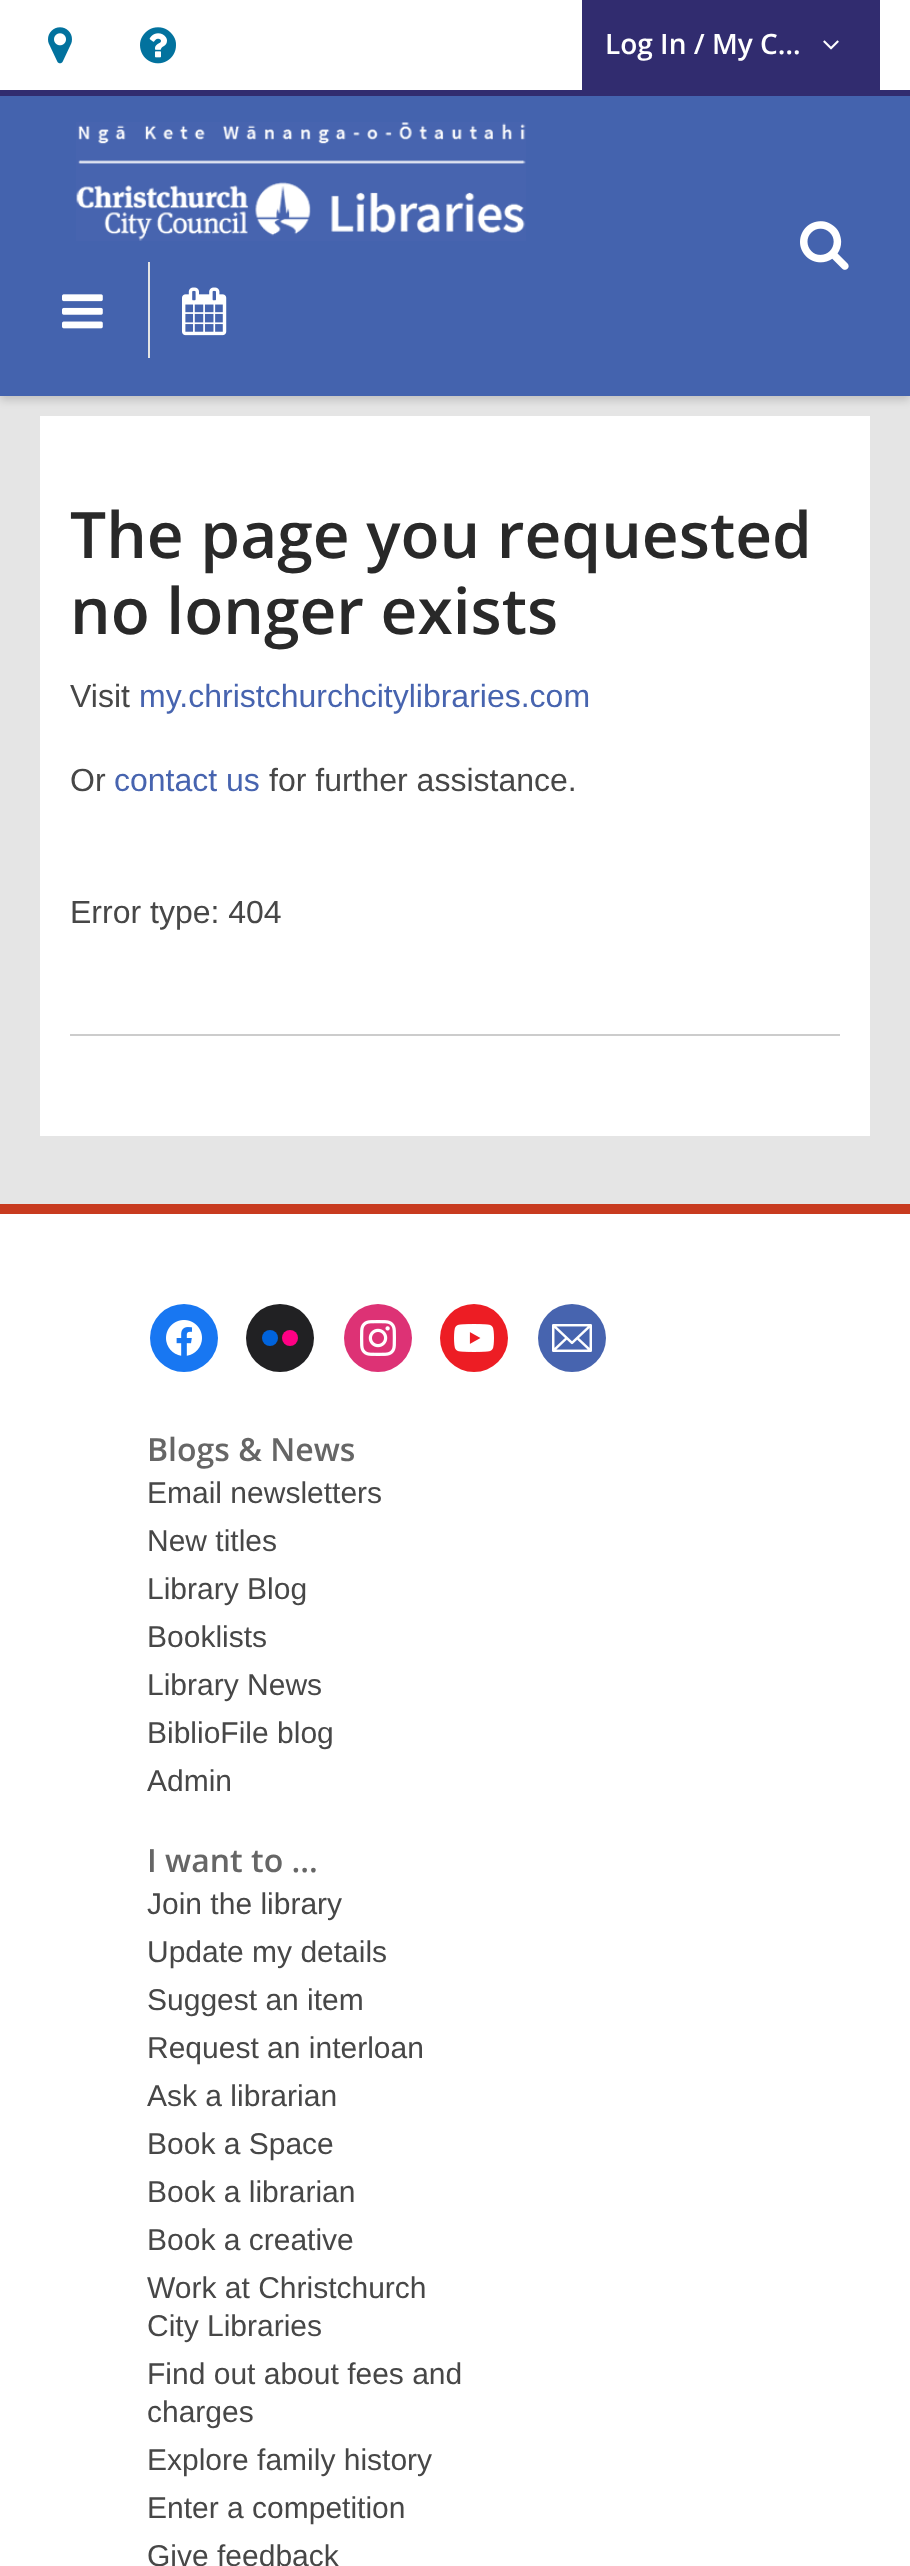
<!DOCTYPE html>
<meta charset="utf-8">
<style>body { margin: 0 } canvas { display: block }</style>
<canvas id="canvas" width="910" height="2566"></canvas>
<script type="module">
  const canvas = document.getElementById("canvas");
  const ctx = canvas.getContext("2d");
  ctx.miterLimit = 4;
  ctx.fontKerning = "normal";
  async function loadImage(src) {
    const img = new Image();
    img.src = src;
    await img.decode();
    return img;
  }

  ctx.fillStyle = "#e5e5e5";
  ctx.fillRect(0, 0, 910, 2566);
  ctx.fillStyle = "rgba(0, 0, 0, 0.16)";
  ctx.filter = "blur(4px)";
  ctx.beginPath();
  ctx.rect(0, 4, 910, 396);
  ctx.fill();
  ctx.filter = "none";
  ctx.fillStyle = "#ffffff";
  ctx.fillRect(0, 0, 910, 90);
  ctx.fillStyle = "#312c6f";
  ctx.fillRect(0, 90, 910, 6);
  ctx.drawImage(await loadImage("img1.png"), 48, 27, 24, 37);
  ctx.drawImage(await loadImage("img2.png"), 140, 27, 36, 37);
  ctx.fillRect(582, 0, 298, 90);
  ctx.font = "600 28px Open Sans";
  ctx.fillStyle = "#ffffff";
  ctx.fillText("Log In / My C…", 605, 54);
  ctx.drawImage(await loadImage("img3.png"), 823, 40, 16, 10);
  ctx.fillStyle = "#4463ae";
  ctx.fillRect(0, 96, 910, 300);
  ctx.drawImage(await loadImage("img4.png"), 76, 122, 450, 119);
  ctx.drawImage(await loadImage("img5.png"), 62, 294, 41, 35);
  ctx.fillStyle = "#e4e4e4";
  ctx.fillRect(148, 262, 2, 96);
  ctx.drawImage(await loadImage("img6.png"), 182, 287, 45, 49);
  ctx.drawImage(await loadImage("img7.png"), 800, 221, 49, 49);
  ctx.fillStyle = "#ffffff";
  ctx.fillRect(40, 416, 830, 720);
  ctx.fillStyle = "#cccccc";
  ctx.fillRect(70, 1034, 770, 2);
  ctx.font = "600 64px Open Sans";
  ctx.fillStyle = "#292929";
  ctx.fillText("The page you requested", 70, 558);
  ctx.fillText("no longer exists", 70, 634);
  ctx.font = "32px Liberation Sans";
  ctx.fillStyle = "#474747";
  ctx.fillText("Visit", 70, 707);
  ctx.fillStyle = "#4764af";
  ctx.fillText("my.christchurchcitylibraries.com", 139, 707);
  ctx.fillStyle = "#474747";
  ctx.fillText("Or", 70, 791);
  ctx.fillStyle = "#4764af";
  ctx.fillText("contact us", 114, 791);
  ctx.fillStyle = "#474747";
  ctx.fillText("for further assistance.", 269, 791);
  ctx.fillText("Error type: 404", 70, 923);
  ctx.fillStyle = "#ffffff";
  ctx.fillRect(0, 1214, 910, 1352);
  ctx.fillStyle = "#c83b20";
  ctx.fillRect(0, 1204, 910, 10);
  ctx.fillStyle = "#1877f2";
  ctx.beginPath();
  ctx.arc(184, 1338, 34, 0, Math.PI * 2);
  ctx.fill();
  ctx.drawImage(await loadImage("img8.png"), 166, 1320, 36, 36);
  ctx.fillStyle = "#212123";
  ctx.beginPath();
  ctx.arc(280, 1338, 34, 0, Math.PI * 2);
  ctx.fill();
  ctx.fillStyle = "#0063dc";
  ctx.beginPath();
  ctx.arc(270, 1338, 8, 0, Math.PI * 2);
  ctx.fill();
  ctx.fillStyle = "#ff0084";
  ctx.beginPath();
  ctx.arc(290, 1338, 8, 0, Math.PI * 2);
  ctx.fill();
  ctx.fillStyle = "#dd3275";
  ctx.beginPath();
  ctx.arc(378, 1338, 34, 0, Math.PI * 2);
  ctx.fill();
  ctx.drawImage(await loadImage("img9.png"), 360, 1320, 36, 36);
  ctx.fillStyle = "#ed1d24";
  ctx.beginPath();
  ctx.arc(474, 1338, 34, 0, Math.PI * 2);
  ctx.fill();
  ctx.drawImage(await loadImage("img10.png"), 454, 1324, 40, 28);
  ctx.fillStyle = "#4764af";
  ctx.beginPath();
  ctx.arc(572, 1338, 34, 0, Math.PI * 2);
  ctx.fill();
  ctx.drawImage(await loadImage("img11.png"), 552, 1324, 40, 28);
  ctx.font = "600 32px Open Sans";
  ctx.fillStyle = "#666666";
  ctx.fillText("Blogs & News", 147, 1461);
  ctx.font = "30px Liberation Sans";
  ctx.fillStyle = "#474747";
  ctx.fillText("Email newsletters", 147, 1503);
  ctx.fillText("New titles", 147, 1551);
  ctx.fillText("Library Blog", 147, 1599);
  ctx.fillText("Booklists", 147, 1647);
  ctx.fillText("Library News", 147, 1695);
  ctx.fillText("BiblioFile blog", 147, 1743);
  ctx.fillText("Admin", 147, 1791);
  ctx.font = "600 32px Open Sans";
  ctx.fillStyle = "#666666";
  ctx.fillText("I want to ...", 147, 1872);
  ctx.font = "30px Liberation Sans";
  ctx.fillStyle = "#474747";
  ctx.fillText("Join the library", 147, 1914);
  ctx.fillText("Update my details", 147, 1962);
  ctx.fillText("Suggest an item", 147, 2010);
  ctx.fillText("Request an interloan", 147, 2058);
  ctx.fillText("Ask a librarian", 147, 2106);
  ctx.fillText("Book a Space", 147, 2154);
  ctx.fillText("Book a librarian", 147, 2202);
  ctx.fillText("Book a creative", 147, 2250);
  ctx.fillText("Work at Christchurch", 147, 2298);
  ctx.fillText("City Libraries", 147, 2336);
  ctx.fillText("Find out about fees and", 147, 2384);
  ctx.fillText("charges", 147, 2422);
  ctx.fillText("Explore family history", 147, 2470);
  ctx.fillText("Enter a competition", 147, 2518);
  ctx.fillText("Give feedback", 147, 2566);
</script>
